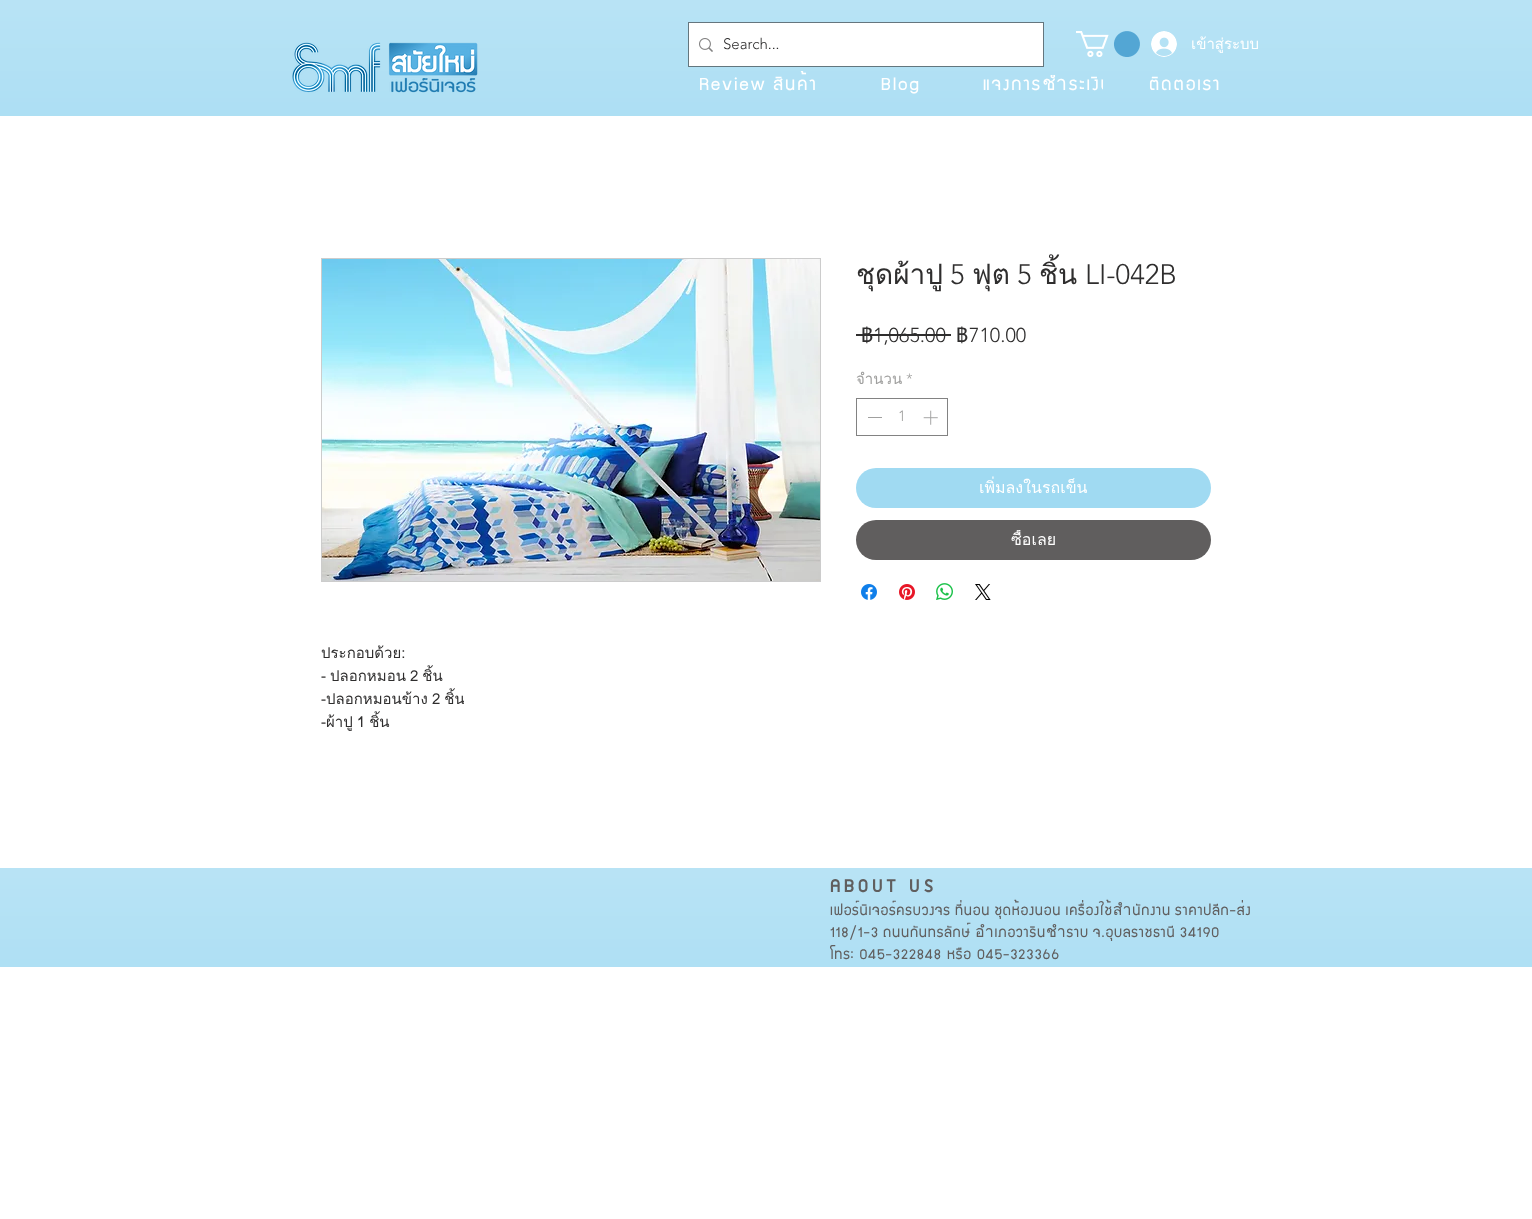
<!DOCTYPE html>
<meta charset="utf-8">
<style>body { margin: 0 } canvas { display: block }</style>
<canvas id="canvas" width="1532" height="1219"></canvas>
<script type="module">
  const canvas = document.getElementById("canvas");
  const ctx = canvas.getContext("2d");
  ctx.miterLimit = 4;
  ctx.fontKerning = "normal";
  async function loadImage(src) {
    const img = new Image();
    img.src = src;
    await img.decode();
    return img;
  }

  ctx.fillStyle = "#ffffff";
  ctx.fillRect(0, 0, 1532, 1219);
  ctx.fillStyle = "#a0daf2";
  ctx.fillRect(0, 0, 1532, 116);
  ctx.drawImage(await loadImage("img1.png"), 0, 0, 1532, 116);
  ctx.drawImage(await loadImage("img2.png"), 292, 42, 186, 51);
  ctx.strokeStyle = "rgba(47, 46, 46, 0.6)";
  ctx.strokeRect(688.5, 22.5, 355, 44);
  ctx.fillStyle = "#ffffff";
  ctx.fillRect(689, 23, 354, 43);
  ctx.drawImage(await loadImage("img3.png"), 699, 38, 14, 14);
  ctx.font = "300 15px 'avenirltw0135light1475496'";
  ctx.fillStyle = "#2f2e2e";
  ctx.fillText("Search...", 723, 49);
  ctx.letterSpacing = "2px";
  ctx.wordSpacing = "-1px";
  ctx.font = "20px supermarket";
  ctx.fillStyle = "#ffffff";
  ctx.fillText("Review สินค้า", 699, 90);
  ctx.wordSpacing = "0px";
  ctx.fillText("Blog", 881, 90);
  ctx.save();
  ctx.beginPath();
  ctx.rect(983, 75, 120, 24);
  ctx.clip();
  ctx.fillText("แจ้งการชำระเงิน", 983, 90);
  ctx.restore();
  ctx.save();
  ctx.beginPath();
  ctx.rect(1149, 75, 72, 24);
  ctx.clip();
  ctx.fillText("ติดต่อเรา", 1149, 90);
  ctx.restore();
  ctx.drawImage(await loadImage("img4.png"), 1076, 31, 64, 26);
  ctx.drawImage(await loadImage("img5.png"), 1151, 31, 26, 26);
  ctx.letterSpacing = "0px";
  ctx.font = "15px Loma";
  ctx.fillText("เข้าสู่ระบบ", 1191, 49);
  ctx.font = "28px Loma";
  ctx.fillStyle = "#2f2e2e";
  ctx.fillText("ชุดผ้าปู", 856, 284);
  ctx.font = "300 28px 'avenirltw0135light1475496'";
  ctx.fillText("5", 950, 284);
  ctx.font = "28px Loma";
  ctx.fillText("ฟุต", 972, 284);
  ctx.font = "300 28px 'avenirltw0135light1475496'";
  ctx.fillText("5", 1017, 284);
  ctx.font = "28px Loma";
  ctx.fillText("ชิ้น", 1039, 284);
  ctx.font = "300 28px 'avenirltw0135light1475496'";
  ctx.fillText("LI-042B", 1085, 284);
  ctx.font = "20px Loma";
  ctx.fillText("฿", 861, 342);
  ctx.fillRect(856, 334, 95, 2);
  ctx.font = "300 20px 'avenirltw0135light1475496'";
  ctx.fillText("1,065.00", 873, 342);
  ctx.font = "20px Loma";
  ctx.fillText("฿", 956, 342);
  ctx.font = "300 20px 'avenirltw0135light1475496'";
  ctx.fillText("710.00", 969, 342);
  ctx.font = "15px Loma";
  ctx.fillStyle = "#a0a09f";
  ctx.fillText("จำนวน", 856, 384);
  ctx.font = "300 15px 'avenirltw0135light1475496'";
  ctx.fillText("*", 906, 384);
  ctx.strokeStyle = "#828282";
  ctx.strokeRect(856.5, 398.5, 91, 37);
  ctx.fillRect(868, 417, 14, 1);
  ctx.fillText("1", 898, 421);
  ctx.drawImage(await loadImage("img6.png"), 923, 410, 15, 15);
  ctx.fillStyle = "#a0daf2";
  ctx.beginPath();
  ctx.roundRect(856, 468, 355, 40, 20);
  ctx.fill();
  ctx.font = "16px Loma";
  ctx.fillStyle = "#ffffff";
  ctx.fillText("เพิ่มลงในรถเข็น", 979, 493);
  ctx.fillStyle = "#605e5e";
  ctx.beginPath();
  ctx.roundRect(856, 520, 355, 40, 20);
  ctx.fill();
  ctx.save();
  ctx.beginPath();
  ctx.rect(1011, 530, 45, 20);
  ctx.clip();
  ctx.fillStyle = "#ffffff";
  ctx.fillText("ซื้อเลย", 1011, 545);
  ctx.restore();
  ctx.drawImage(await loadImage("img7.png"), 861, 584, 16, 16);
  ctx.drawImage(await loadImage("img8.png"), 899, 584, 16, 16);
  ctx.drawImage(await loadImage("img9.png"), 936, 583, 17, 17);
  ctx.drawImage(await loadImage("img10.png"), 975, 584, 16, 16);
  ctx.strokeStyle = "#cccccc";
  ctx.strokeRect(321.5, 258.5, 499, 323);
  ctx.drawImage(await loadImage("img11.png"), 322, 259, 498, 322);
  ctx.font = "15px Loma";
  ctx.fillStyle = "#2f2e2e";
  ctx.fillText("ประกอบด้วย:", 321, 658);
  ctx.wordSpacing = "-1px";
  ctx.fillText("- ปลอกหมอน 2 ชิ้น", 321, 681);
  ctx.save();
  ctx.beginPath();
  ctx.rect(321, 642, 143, 92);
  ctx.clip();
  ctx.fillText("-ปลอกหมอนข้าง 2 ชิ้น", 321, 704);
  ctx.fillText("-ผ้าปู 1 ชิ้น", 321, 727);
  ctx.restore();
  ctx.fillStyle = "#a0daf2";
  ctx.fillRect(0, 868, 1532, 99);
  ctx.drawImage(await loadImage("img12.png"), 0, 868, 1532, 99);
  ctx.letterSpacing = "4px";
  ctx.wordSpacing = "0px";
  ctx.font = "bold 20px supermarket";
  ctx.fillStyle = "#605e5e";
  ctx.fillText("ABOUT US", 830, 892);
  ctx.letterSpacing = "0.8px";
  ctx.wordSpacing = "-1px";
  ctx.font = "16px supermarket";
  ctx.fillText("เฟอร์นิเจอร์ครบวงจร ที่นอน ชุดห้องนอน เครื่องใช้สำนักงาน ราคาปลีก-ส่ง", 830, 915);
  ctx.fillText("118/1-3 ถนนกันทรลักษ์ อำเภอวารินชำราบ จ.อุบลราชธานี 34190", 830, 937);
  ctx.wordSpacing = "0px";
  ctx.fillText("โทร: 045-322848 หรือ 045-323366", 830, 959);
</script>
